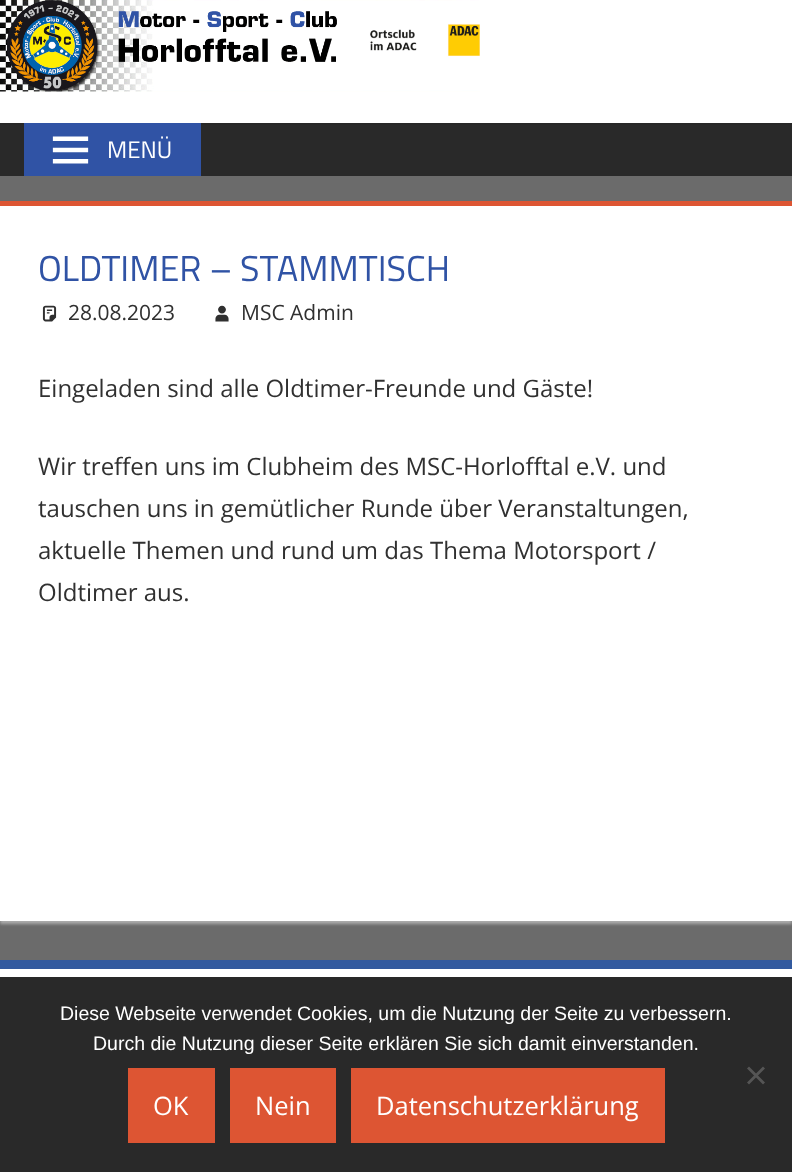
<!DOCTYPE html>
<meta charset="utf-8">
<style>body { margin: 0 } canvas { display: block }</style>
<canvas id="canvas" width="792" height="1172"></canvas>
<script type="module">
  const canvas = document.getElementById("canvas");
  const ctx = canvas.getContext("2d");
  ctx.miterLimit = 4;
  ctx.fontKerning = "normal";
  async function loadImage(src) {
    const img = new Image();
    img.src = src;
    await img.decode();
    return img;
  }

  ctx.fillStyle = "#6b6b6b";
  ctx.fillRect(0, 0, 792, 1172);
  ctx.fillStyle = "#ffffff";
  ctx.fillRect(0, 0, 792, 123);
  ctx.drawImage(await loadImage("img1.png"), 0, 0, 480, 92);
  ctx.fillStyle = "#292929";
  ctx.fillRect(0, 125, 792, 51);
  ctx.fillStyle = "#272727";
  ctx.fillRect(0, 123, 792, 2);
  ctx.fillStyle = "#3053a5";
  ctx.fillRect(24, 123, 177, 53);
  ctx.drawImage(await loadImage("img2.png"), 52, 136, 37, 28);
  ctx.font = "24px Titillium Web";
  ctx.fillStyle = "#ffffff";
  ctx.fillText("MENÜ", 107, 158);
  ctx.fillStyle = "#aaaaaa";
  ctx.filter = "blur(1.5px)";
  ctx.beginPath();
  ctx.rect(0, 204, 792, 720);
  ctx.fill();
  ctx.filter = "none";
  ctx.fillStyle = "#ffffff";
  ctx.fillRect(0, 206, 792, 715);
  ctx.fillStyle = "#dd5533";
  ctx.fillRect(0, 201, 792, 5);
  ctx.font = "36px Titillium Web";
  ctx.fillStyle = "#3053a5";
  ctx.fillText("OLDTIMER – STAMMTISCH", 38, 281);
  ctx.drawImage(await loadImage("img3.png"), 42, 305, 15, 17);
  ctx.font = "21px Open Sans";
  ctx.fillStyle = "#303030";
  ctx.fillText("28.08.2023", 68, 320);
  ctx.drawImage(await loadImage("img4.png"), 215, 305, 14, 17);
  ctx.fillText("MSC Admin", 241, 320);
  ctx.font = "24px Open Sans";
  ctx.fillText("Eingeladen sind alle Oldtimer-Freunde und Gäste!", 38, 397);
  ctx.fillText("Wir treffen uns im Clubheim des MSC-Horlofftal e.V. und", 38, 475);
  ctx.fillText("tauschen uns in gemütlicher Runde über Veranstaltungen,", 38, 517);
  ctx.fillText("aktuelle Themen und rund um das Thema Motorsport /", 38, 559);
  ctx.fillText("Oldtimer aus.", 38, 601);
  ctx.fillStyle = "#ffffff";
  ctx.fillRect(0, 969, 792, 8);
  ctx.fillStyle = "#325a9f";
  ctx.fillRect(0, 960, 792, 9);
  ctx.fillStyle = "#292929";
  ctx.fillRect(0, 977, 792, 195);
  ctx.font = "19.5px Liberation Sans";
  ctx.fillStyle = "#ffffff";
  ctx.fillText("Diese Webseite verwendet Cookies, um die Nutzung der Seite zu verbessern.", 60, 1020);
  ctx.fillText("Durch die Nutzung dieser Seite erklären Sie sich damit einverstanden.", 93, 1050);
  ctx.fillStyle = "#555555";
  ctx.beginPath();
  ctx.moveTo(763, 1066.5);
  ctx.lineTo(765, 1068.5);
  ctx.lineTo(749, 1084.5);
  ctx.lineTo(747, 1082.5);
  ctx.closePath();
  ctx.fill();
  ctx.beginPath();
  ctx.moveTo(747, 1068.5);
  ctx.lineTo(749, 1066.5);
  ctx.lineTo(765, 1082.5);
  ctx.lineTo(763, 1084.5);
  ctx.closePath();
  ctx.fill();
  ctx.fillStyle = "#dd5533";
  ctx.fillRect(128, 1068, 87, 75);
  ctx.font = "25.5px Open Sans";
  ctx.fillStyle = "#ffffff";
  ctx.fillText("OK", 153, 1115);
  ctx.fillStyle = "#dd5533";
  ctx.fillRect(230, 1068, 106, 75);
  ctx.fillStyle = "#ffffff";
  ctx.fillText("Nein", 255, 1115);
  ctx.fillStyle = "#dd5533";
  ctx.fillRect(351, 1068, 314, 75);
  ctx.fillStyle = "#ffffff";
  ctx.fillText("Datenschutzerklärung", 376, 1115);
</script>
